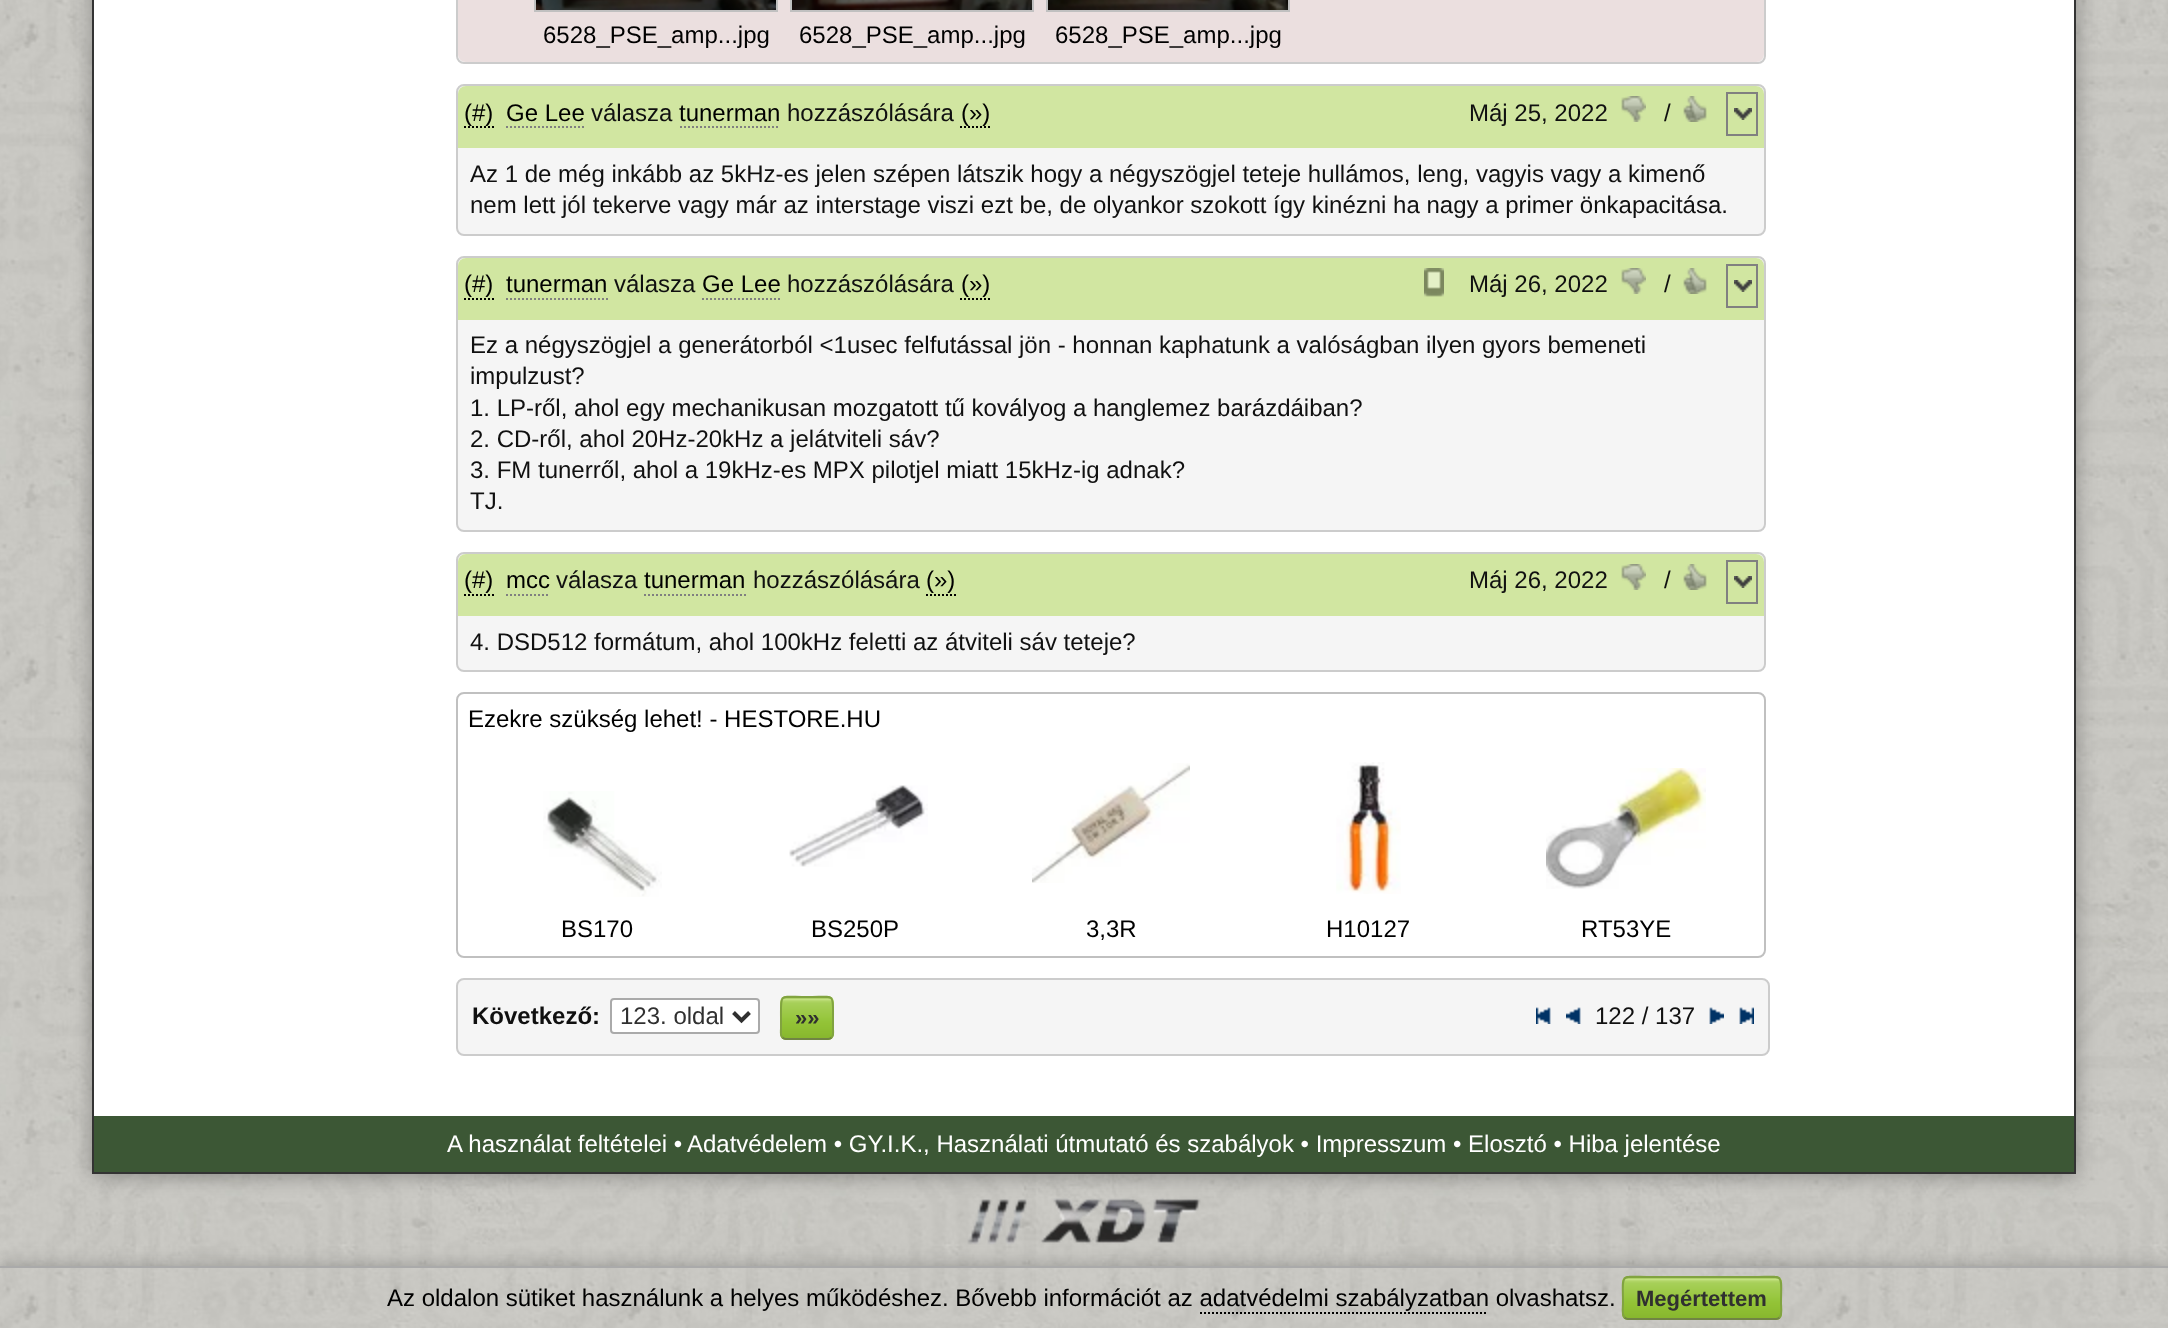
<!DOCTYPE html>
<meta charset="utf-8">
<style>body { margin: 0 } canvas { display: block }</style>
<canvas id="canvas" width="2168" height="1328"></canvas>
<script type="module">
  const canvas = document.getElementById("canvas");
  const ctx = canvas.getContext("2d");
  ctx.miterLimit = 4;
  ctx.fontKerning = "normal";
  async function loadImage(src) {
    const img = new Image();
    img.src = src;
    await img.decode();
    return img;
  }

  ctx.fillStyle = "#ffffff";
  ctx.fillRect(0, 0, 2168, 1328);
  ctx.drawImage(await loadImage("img1.png"), 0, 0, 2168, 1266);
  ctx.drawImage(await loadImage("img19.png"), 967, 1198, 234, 47);
  ctx.fillStyle = "rgba(0, 0, 0, 0.3)";
  ctx.filter = "blur(10px)";
  ctx.beginPath();
  ctx.rect(92, -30, 1984, 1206);
  ctx.fill();
  ctx.filter = "none";
  ctx.fillStyle = "#ffffff";
  ctx.fillRect(94, 0, 1980, 1116);
  ctx.fillStyle = "#333333";
  ctx.fillRect(2074, 0, 2, 1174);
  ctx.fillRect(92, 1172, 1984, 2);
  ctx.fillRect(92, 0, 2, 1174);
  ctx.fillStyle = "#f5f5f5";
  ctx.beginPath();
  ctx.roundRect(457, -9, 1308, 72, 7);
  ctx.fill();
  ctx.strokeStyle = "#cccccc";
  ctx.lineWidth = 2;
  ctx.stroke();
  ctx.fillStyle = "#ebdfdf";
  ctx.beginPath();
  ctx.moveTo(458, -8);
  ctx.lineTo(1764, -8);
  ctx.lineTo(1764, 54);
  ctx.bezierCurveTo(1764, 58.5, 1760.5, 62, 1756, 62);
  ctx.lineTo(466, 62);
  ctx.bezierCurveTo(461.5, 62, 458, 58.5, 458, 54);
  ctx.closePath();
  ctx.fill();
  ctx.strokeStyle = "#c0c0c0";
  ctx.strokeRect(535, -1, 242, 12);
  ctx.drawImage(await loadImage("img2.png"), 536, 0, 240, 10);
  ctx.font = "24px Liberation Sans";
  ctx.fillStyle = "#000000";
  ctx.fillText("6528_PSE_amp...jpg", 543, 43);
  ctx.strokeRect(791, -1, 242, 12);
  ctx.drawImage(await loadImage("img3.png"), 792, 0, 240, 10);
  ctx.fillText("6528_PSE_amp...jpg", 799, 43);
  ctx.strokeRect(1047, -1, 242, 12);
  ctx.drawImage(await loadImage("img4.png"), 1048, 0, 240, 10);
  ctx.fillText("6528_PSE_amp...jpg", 1055, 43);
  ctx.fillStyle = "#f5f5f5";
  ctx.beginPath();
  ctx.roundRect(457, 85, 1308, 150, 7);
  ctx.fill();
  ctx.strokeStyle = "#cccccc";
  ctx.stroke();
  ctx.fillStyle = "#d1e6a1";
  ctx.beginPath();
  ctx.roundRect(458, 86, 1306, 62, [8, 8, 0, 0]);
  ctx.fill();
  ctx.fillStyle = "#000000";
  ctx.fillText("(#)", 464, 121);
  ctx.beginPath();
  ctx.moveTo(464, 127);
  ctx.lineTo(494, 127);
  ctx.strokeStyle = "#000000";
  ctx.setLineDash([2, 2]);
  ctx.stroke();
  ctx.fillText("Ge Lee", 506, 121);
  ctx.beginPath();
  ctx.moveTo(506, 127);
  ctx.lineTo(584, 127);
  ctx.strokeStyle = "#808080";
  ctx.stroke();
  ctx.fillStyle = "#101010";
  ctx.fillText("válasza", 591, 121);
  ctx.fillStyle = "#000000";
  ctx.fillText("tunerman", 679, 121);
  ctx.beginPath();
  ctx.moveTo(680, 127);
  ctx.lineTo(780, 127);
  ctx.stroke();
  ctx.fillStyle = "#101010";
  ctx.fillText("hozzászólására", 787, 121);
  ctx.fillStyle = "#000000";
  ctx.fillText("(»)", 961, 121);
  ctx.beginPath();
  ctx.moveTo(960, 127);
  ctx.lineTo(990, 127);
  ctx.strokeStyle = "#000000";
  ctx.stroke();
  ctx.fillStyle = "#101010";
  ctx.fillText("Máj 25, 2022", 1469, 121);
  ctx.drawImage(await loadImage("img5.png"), 1621, 96, 25, 26);
  ctx.fillText("/", 1664, 121);
  ctx.drawImage(await loadImage("img6.png"), 1683, 96, 24, 26);
  ctx.drawImage(await loadImage("img7.png"), 1734, 108, 18, 12);
  ctx.strokeStyle = "#808080";
  ctx.setLineDash([]);
  ctx.strokeRect(1727, 93, 30, 42);
  ctx.fillText("Az 1 de még inkább az 5kHz-es jelen szépen látszik hogy a négyszögjel teteje hullámos, leng, vagyis vagy a kimenő", 470, 182);
  ctx.fillText("nem lett jól tekerve vagy már az interstage viszi ezt be, de olyankor szokott így kinézni ha nagy a primer önkapacitása.", 470, 213);
  ctx.fillStyle = "#f5f5f5";
  ctx.beginPath();
  ctx.roundRect(457, 257, 1308, 274, 7);
  ctx.fill();
  ctx.strokeStyle = "#cccccc";
  ctx.stroke();
  ctx.fillStyle = "#d1e6a1";
  ctx.beginPath();
  ctx.roundRect(458, 258, 1306, 62, [8, 8, 0, 0]);
  ctx.fill();
  ctx.fillStyle = "#000000";
  ctx.fillText("(#)", 464, 292);
  ctx.beginPath();
  ctx.moveTo(464, 299);
  ctx.lineTo(494, 299);
  ctx.strokeStyle = "#000000";
  ctx.setLineDash([2, 2]);
  ctx.stroke();
  ctx.fillText("tunerman", 506, 292);
  ctx.beginPath();
  ctx.moveTo(506, 299);
  ctx.lineTo(608, 299);
  ctx.strokeStyle = "#808080";
  ctx.stroke();
  ctx.fillStyle = "#101010";
  ctx.fillText("válasza", 614, 292);
  ctx.fillStyle = "#000000";
  ctx.fillText("Ge Lee", 702, 292);
  ctx.beginPath();
  ctx.moveTo(702, 299);
  ctx.lineTo(780, 299);
  ctx.stroke();
  ctx.fillStyle = "#101010";
  ctx.fillText("hozzászólására", 787, 292);
  ctx.fillStyle = "#000000";
  ctx.fillText("(»)", 961, 292);
  ctx.beginPath();
  ctx.moveTo(960, 299);
  ctx.lineTo(990, 299);
  ctx.strokeStyle = "#000000";
  ctx.stroke();
  ctx.drawImage(await loadImage("img8.png"), 1424, 268, 20, 29);
  ctx.fillStyle = "#101010";
  ctx.fillText("Máj 26, 2022", 1469, 292);
  ctx.drawImage(await loadImage("img5.png"), 1621, 268, 25, 26);
  ctx.fillText("/", 1664, 292);
  ctx.drawImage(await loadImage("img6.png"), 1683, 268, 24, 26);
  ctx.drawImage(await loadImage("img7.png"), 1734, 280, 18, 12);
  ctx.strokeStyle = "#808080";
  ctx.setLineDash([]);
  ctx.strokeRect(1727, 265, 30, 42);
  ctx.fillText("Ez a négyszögjel a generátorból <1usec felfutással jön - honnan kaphatunk a valóságban ilyen gyors bemeneti", 470, 353);
  ctx.fillText("impulzust?", 470, 384);
  ctx.fillText("1. LP-ről, ahol egy mechanikusan mozgatott tű kovályog a hanglemez barázdáiban?", 470, 416);
  ctx.fillText("2. CD-ről, ahol 20Hz-20kHz a jelátviteli sáv?", 470, 447);
  ctx.fillText("3. FM tunerről, ahol a 19kHz-es MPX pilotjel miatt 15kHz-ig adnak?", 470, 478);
  ctx.fillText("TJ.", 470, 509);
  ctx.fillStyle = "#f5f5f5";
  ctx.beginPath();
  ctx.roundRect(457, 553, 1308, 118, 7);
  ctx.fill();
  ctx.strokeStyle = "#cccccc";
  ctx.stroke();
  ctx.fillStyle = "#d1e6a1";
  ctx.beginPath();
  ctx.roundRect(458, 554, 1306, 62, [8, 8, 0, 0]);
  ctx.fill();
  ctx.fillStyle = "#000000";
  ctx.fillText("(#)", 464, 588);
  ctx.beginPath();
  ctx.moveTo(464, 595);
  ctx.lineTo(494, 595);
  ctx.strokeStyle = "#000000";
  ctx.setLineDash([2, 2]);
  ctx.stroke();
  ctx.fillText("mcc", 506, 588);
  ctx.beginPath();
  ctx.moveTo(506, 595);
  ctx.lineTo(550, 595);
  ctx.strokeStyle = "#808080";
  ctx.stroke();
  ctx.fillStyle = "#101010";
  ctx.fillText("válasza", 556, 588);
  ctx.fillStyle = "#000000";
  ctx.fillText("tunerman", 644, 588);
  ctx.beginPath();
  ctx.moveTo(644, 595);
  ctx.lineTo(746, 595);
  ctx.stroke();
  ctx.fillStyle = "#101010";
  ctx.fillText("hozzászólására", 753, 588);
  ctx.fillStyle = "#000000";
  ctx.fillText("(»)", 926, 588);
  ctx.beginPath();
  ctx.moveTo(926, 595);
  ctx.lineTo(956, 595);
  ctx.strokeStyle = "#000000";
  ctx.stroke();
  ctx.fillStyle = "#101010";
  ctx.fillText("Máj 26, 2022", 1469, 588);
  ctx.drawImage(await loadImage("img5.png"), 1621, 564, 25, 26);
  ctx.fillText("/", 1664, 588);
  ctx.drawImage(await loadImage("img6.png"), 1683, 564, 24, 26);
  ctx.drawImage(await loadImage("img7.png"), 1734, 576, 18, 12);
  ctx.strokeStyle = "#808080";
  ctx.setLineDash([]);
  ctx.strokeRect(1727, 561, 30, 42);
  ctx.fillText("4. DSD512 formátum, ahol 100kHz feletti az átviteli sáv teteje?", 470, 650);
  ctx.beginPath();
  ctx.roundRect(457, 693, 1308, 264, 7);
  ctx.strokeStyle = "#c0c0c0";
  ctx.stroke();
  ctx.fillStyle = "#000000";
  ctx.fillText("Ezekre szükség lehet! - HESTORE.HU", 468, 727);
  ctx.drawImage(await loadImage("img9.png"), 543, 791, 119, 106);
  ctx.fillText("BS170", 561, 937);
  ctx.drawImage(await loadImage("img10.png"), 789, 785, 139, 82);
  ctx.fillText("BS250P", 811, 937);
  ctx.drawImage(await loadImage("img11.png"), 1032, 763, 158, 120);
  ctx.fillText("3,3R", 1086, 937);
  ctx.drawImage(await loadImage("img12.png"), 1336, 762, 65, 132);
  ctx.fillText("H10127", 1326, 937);
  ctx.drawImage(await loadImage("img13.png"), 1546, 768, 160, 121);
  ctx.fillText("RT53YE", 1581, 937);
  ctx.fillStyle = "#f5f5f5";
  ctx.beginPath();
  ctx.roundRect(457, 979, 1312, 76, 7);
  ctx.fill();
  ctx.strokeStyle = "#cccccc";
  ctx.stroke();
  ctx.font = "bold 24px Liberation Sans";
  ctx.fillStyle = "#101010";
  ctx.fillText("Következő:", 472, 1024);
  ctx.fillStyle = "#ffffff";
  ctx.beginPath();
  ctx.roundRect(611, 999, 148, 34, 3);
  ctx.fill();
  ctx.strokeStyle = "#aaaaaa";
  ctx.stroke();
  ctx.beginPath();
  ctx.moveTo(733.5, 1012.5);
  ctx.lineTo(741.5, 1020.5);
  ctx.lineTo(749.5, 1012.5);
  ctx.strokeStyle = "#303030";
  ctx.lineWidth = 4;
  ctx.stroke();
  ctx.font = "24px Liberation Sans";
  ctx.fillStyle = "#303030";
  ctx.fillText("123. oldal", 620, 1024);
  ctx.drawImage(await loadImage("img14.png"), 780, 996, 54, 44);
  ctx.beginPath();
  ctx.moveTo(831.5, 1037.5);
  ctx.bezierCurveTo(830.5, 1038.5, 829.5, 1039, 828, 1039);
  ctx.lineTo(786, 1039);
  ctx.bezierCurveTo(784.5, 1039, 783.5, 1038.5, 782.5, 1037.5);
  ctx.strokeStyle = "#708444";
  ctx.lineWidth = 2;
  ctx.stroke();
  ctx.beginPath();
  ctx.moveTo(782.5, 1037.5);
  ctx.bezierCurveTo(780, 1035.5, 781, 1031.5, 781, 1028.5);
  ctx.lineTo(781, 1018);
  ctx.bezierCurveTo(781, 992, 778.5, 997, 807, 997);
  ctx.bezierCurveTo(835.5, 997, 833, 992, 833, 1018);
  ctx.lineTo(833, 1028.5);
  ctx.bezierCurveTo(833, 1031.5, 834, 1035.5, 831.5, 1037.5);
  ctx.strokeStyle = "#81a340";
  ctx.stroke();
  ctx.font = "bold 22px Liberation Sans";
  ctx.fillText("»»", 795, 1025);
  ctx.drawImage(await loadImage("img15.png"), 1536, 1007, 15, 17);
  ctx.drawImage(await loadImage("img16.png"), 1566, 1007, 15, 17);
  ctx.font = "24px Liberation Sans";
  ctx.fillStyle = "#101010";
  ctx.fillText("122 / 137", 1595, 1024);
  ctx.drawImage(await loadImage("img17.png"), 1709, 1007, 15, 17);
  ctx.drawImage(await loadImage("img18.png"), 1739, 1007, 15, 17);
  ctx.fillStyle = "#3c5735";
  ctx.fillRect(94, 1116, 1980, 56);
  ctx.fillStyle = "#ffffff";
  ctx.fillText("A használat feltételei •", 447, 1152);
  ctx.fillText("Adatvédelem • GY.I.K., Használati útmutató és szabályok • Impresszum • Elosztó • Hiba jelentése", 687, 1152);
  ctx.fillStyle = "rgba(0, 0, 0, 0.3)";
  ctx.filter = "blur(10px)";
  ctx.beginPath();
  ctx.rect(0, 1268, 2168, 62);
  ctx.fill();
  ctx.filter = "none";
  ctx.drawImage(await loadImage("img20.png"), 0, 1268, 2168, 60);
  ctx.fillStyle = "#aaaaaa";
  ctx.fillRect(0, 1266, 2168, 2);
  ctx.fillStyle = "#000000";
  ctx.fillText("Az oldalon sütiket használunk a helyes működéshez. Bővebb információt az adatvédelmi szabályzatban olvashatsz.", 387, 1306);
  ctx.drawImage(await loadImage("img21.png"), 1622, 1276, 160, 44);
  ctx.beginPath();
  ctx.moveTo(1779.5, 1317.5);
  ctx.bezierCurveTo(1778.5, 1318.5, 1777.5, 1319, 1776, 1319);
  ctx.lineTo(1628, 1319);
  ctx.bezierCurveTo(1626.5, 1319, 1625.5, 1318.5, 1624.5, 1317.5);
  ctx.strokeStyle = "#708444";
  ctx.stroke();
  ctx.beginPath();
  ctx.moveTo(1624.5, 1317.5);
  ctx.bezierCurveTo(1621.5, 1314.5, 1623, 1306.5, 1623, 1303.5);
  ctx.bezierCurveTo(1623, 1271.5, 1618, 1277, 1652.5, 1277);
  ctx.lineTo(1751.5, 1277);
  ctx.bezierCurveTo(1786, 1277, 1781, 1271.5, 1781, 1303.5);
  ctx.bezierCurveTo(1781, 1306.5, 1782.5, 1314.5, 1779.5, 1317.5);
  ctx.strokeStyle = "#81a340";
  ctx.stroke();
  ctx.font = "bold 22px Liberation Sans";
  ctx.fillStyle = "#303030";
  ctx.fillText("Megértettem", 1636, 1306);
  ctx.beginPath();
  ctx.moveTo(1200, 1313);
  ctx.lineTo(1488, 1313);
  ctx.strokeStyle = "#000000";
  ctx.setLineDash([2, 2]);
  ctx.stroke();
</script>
